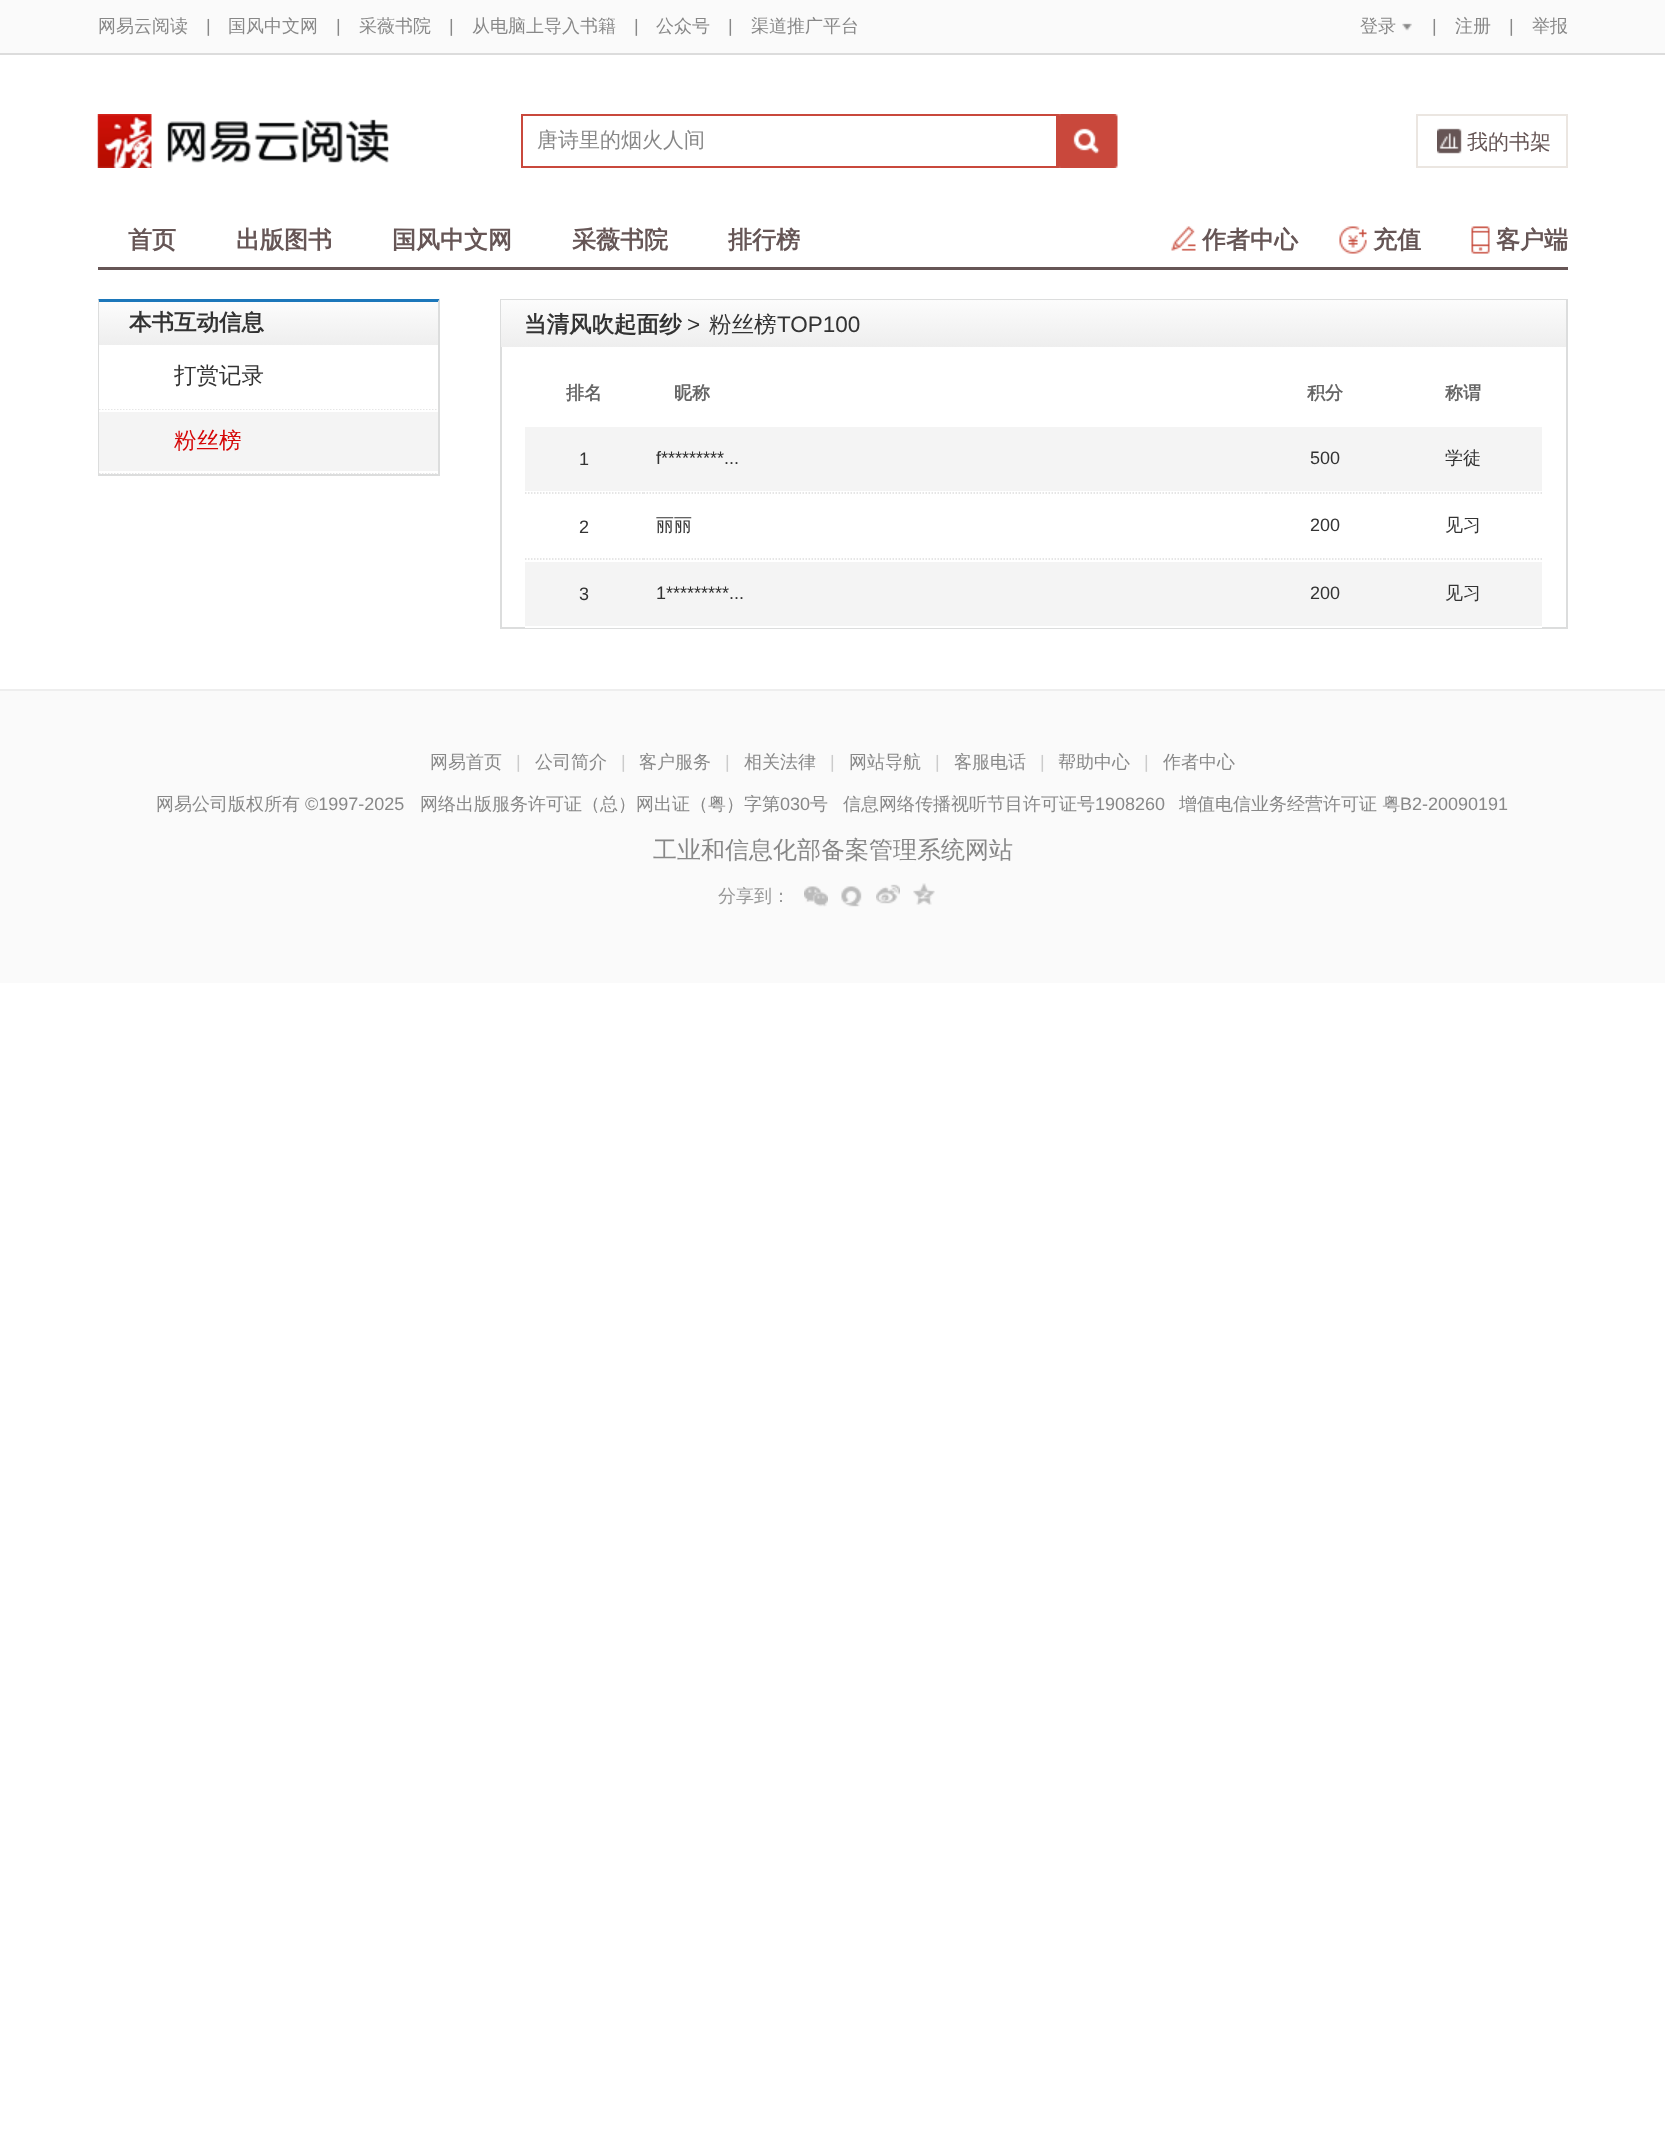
<!DOCTYPE html>
<meta charset="utf-8">
<style>body { margin: 0 } canvas { display: block }</style>
<canvas id="canvas" width="1665" height="2138"></canvas>
<script type="module">
  const canvas = document.getElementById("canvas");
  const ctx = canvas.getContext("2d");
  ctx.miterLimit = 4;
  ctx.fontKerning = "normal";
  async function loadImage(src) {
    const img = new Image();
    img.src = src;
    await img.decode();
    return img;
  }
  let gradient;

  ctx.fillStyle = "#ffffff";
  ctx.fillRect(0, 0, 1665, 2138);
  ctx.fillStyle = "#fafafa";
  ctx.fillRect(0, 0, 1665, 53);
  ctx.fillStyle = "#dcdcdc";
  ctx.fillRect(0, 53, 1665, 2);
  ctx.font = "500 18px WenQuanYi Zen Hei";
  ctx.fillStyle = "#888888";
  ctx.fillText("网易云阅读", 98, 32);
  ctx.font = "18px Liberation Sans";
  ctx.fillText("|", 206, 32);
  ctx.font = "500 18px WenQuanYi Zen Hei";
  ctx.fillText("国风中文网", 228, 32);
  ctx.font = "18px Liberation Sans";
  ctx.fillText("|", 336, 32);
  ctx.font = "500 18px WenQuanYi Zen Hei";
  ctx.fillText("采薇书院", 359, 32);
  ctx.font = "18px Liberation Sans";
  ctx.fillText("|", 449, 32);
  ctx.font = "500 18px WenQuanYi Zen Hei";
  ctx.fillText("从电脑上导入书籍", 472, 32);
  ctx.font = "18px Liberation Sans";
  ctx.fillText("|", 634, 32);
  ctx.font = "500 18px WenQuanYi Zen Hei";
  ctx.fillText("公众号", 656, 32);
  ctx.font = "18px Liberation Sans";
  ctx.fillText("|", 728, 32);
  ctx.font = "500 18px WenQuanYi Zen Hei";
  ctx.fillText("渠道推广平台", 751, 32);
  ctx.fillText("登录", 1360, 32);
  ctx.drawImage(await loadImage("img1.png"), 1402, 23, 10, 8);
  ctx.font = "18px Liberation Sans";
  ctx.fillText("|", 1432, 32);
  ctx.font = "500 18px WenQuanYi Zen Hei";
  ctx.fillText("注册", 1455, 32);
  ctx.font = "18px Liberation Sans";
  ctx.fillText("|", 1509, 32);
  ctx.font = "500 18px WenQuanYi Zen Hei";
  ctx.fillText("举报", 1532, 32);
  ctx.drawImage(await loadImage("img2.png"), 97, 114, 292, 54);
  ctx.strokeStyle = "#c9483c";
  ctx.lineWidth = 2;
  ctx.strokeRect(522, 115, 535, 52);
  ctx.font = "500 21px WenQuanYi Zen Hei";
  ctx.fillText("唐诗里的烟火人间", 537, 147);
  ctx.drawImage(await loadImage("img3.png"), 1058, 114, 60, 54);
  ctx.drawImage(await loadImage("img4.png"), 1437, 128, 25, 26);
  ctx.strokeStyle = "#ebe6e1";
  ctx.strokeRect(1417, 115, 150, 52);
  ctx.fillStyle = "#665656";
  ctx.fillText("我的书架", 1467, 149);
  ctx.fillRect(98, 267, 1470, 3);
  ctx.font = "bold 24px WenQuanYi Zen Hei";
  ctx.fillText("首页", 128, 248);
  ctx.fillText("出版图书", 236, 248);
  ctx.fillText("国风中文网", 392, 248);
  ctx.fillText("采薇书院", 572, 248);
  ctx.fillText("排行榜", 728, 248);
  ctx.drawImage(await loadImage("img5.png"), 1171, 226, 25, 25);
  ctx.fillText("作者中心", 1202, 248);
  ctx.drawImage(await loadImage("img6.png"), 1339, 226, 28, 28);
  ctx.fillText("充值", 1373, 248);
  ctx.drawImage(await loadImage("img7.png"), 1471, 226, 19, 28);
  ctx.fillText("客户端", 1496, 248);
  ctx.save();
  ctx.beginPath();
  ctx.rect(98, 299, 342, 177);
  ctx.clip();
  ctx.fillStyle = "#1c77ba";
  ctx.beginPath();
  ctx.moveTo(98, 298);
  ctx.lineTo(440, 298);
  ctx.lineTo(438, 302);
  ctx.lineTo(99, 302);
  ctx.closePath();
  ctx.fill();
  ctx.restore();
  ctx.fillStyle = "#dcdddd";
  ctx.beginPath();
  ctx.moveTo(440, 298);
  ctx.lineTo(440, 476);
  ctx.lineTo(438, 474);
  ctx.lineTo(438, 302);
  ctx.closePath();
  ctx.fill();
  ctx.fillRect(98, 474, 342, 2);
  ctx.beginPath();
  ctx.moveTo(98, 476);
  ctx.lineTo(98, 298);
  ctx.lineTo(99, 302);
  ctx.lineTo(99, 474);
  ctx.closePath();
  ctx.fill();
  gradient = ctx.createLinearGradient(99, 302, 99, 345);
  gradient.addColorStop(0, "#fcfcfc");
  gradient.addColorStop(1, "#eeeeee");
  ctx.fillStyle = gradient;
  ctx.fillRect(99, 302, 339, 43);
  ctx.font = "bold 22.5px WenQuanYi Zen Hei";
  ctx.fillStyle = "#333333";
  ctx.fillText("本书互动信息", 129, 330);
  ctx.beginPath();
  ctx.moveTo(99, 409);
  ctx.lineTo(438, 409);
  ctx.strokeStyle = "#dedede";
  ctx.lineWidth = 1.5;
  ctx.setLineDash([1.5, 1.5]);
  ctx.stroke();
  ctx.fillStyle = "#ffffff";
  ctx.fillRect(99, 408, 339, 1);
  ctx.font = "500 22.5px WenQuanYi Zen Hei";
  ctx.fillStyle = "#333333";
  ctx.fillText("打赏记录", 174, 383);
  ctx.beginPath();
  ctx.moveTo(99, 473);
  ctx.lineTo(438, 473);
  ctx.stroke();
  ctx.fillStyle = "#f4f4f4";
  ctx.fillRect(99, 412, 339, 59);
  ctx.fillStyle = "#ffffff";
  ctx.fillRect(99, 472, 339, 1);
  ctx.fillStyle = "#d50808";
  ctx.fillText("粉丝榜", 174, 448);
  ctx.strokeStyle = "#dcdddd";
  ctx.lineWidth = 2;
  ctx.setLineDash([]);
  ctx.strokeRect(501, 300, 1066, 328);
  gradient = ctx.createLinearGradient(501, 300, 501, 347);
  gradient.addColorStop(0, "#fcfcfc");
  gradient.addColorStop(1, "#eeeeee");
  ctx.fillStyle = gradient;
  ctx.fillRect(501, 300, 1065, 47);
  ctx.font = "bold 22.5px WenQuanYi Zen Hei";
  ctx.fillStyle = "#333333";
  ctx.fillText("当清风吹起面纱", 524, 332);
  ctx.font = "22.5px Liberation Sans";
  ctx.fillText(">", 687, 332);
  ctx.font = "500 22.5px WenQuanYi Zen Hei";
  ctx.fillText("粉丝榜", 709, 332);
  ctx.font = "22.5px Liberation Sans";
  ctx.fillText("TOP100", 777, 332);
  ctx.font = "bold 18px WenQuanYi Zen Hei";
  ctx.fillStyle = "#666666";
  ctx.fillText("排名", 566, 399);
  ctx.fillText("昵称", 674, 399);
  ctx.fillText("积分", 1307, 399);
  ctx.fillText("称谓", 1445, 399);
  ctx.fillStyle = "#f4f4f4";
  ctx.fillRect(525, 427, 1017, 64);
  ctx.font = "18px Liberation Sans";
  ctx.fillStyle = "#333333";
  ctx.fillText("1", 579, 465);
  ctx.fillText("f*********...", 656, 464);
  ctx.fillText("500", 1310, 464);
  ctx.font = "500 18px WenQuanYi Zen Hei";
  ctx.fillText("学徒", 1445, 464);
  ctx.beginPath();
  ctx.moveTo(525, 493);
  ctx.lineTo(643.5, 493);
  ctx.strokeStyle = "#dedede";
  ctx.lineWidth = 1.5;
  ctx.setLineDash([1.5, 1.5]);
  ctx.stroke();
  ctx.beginPath();
  ctx.moveTo(525, 559);
  ctx.lineTo(643.5, 559);
  ctx.stroke();
  ctx.font = "18px Liberation Sans";
  ctx.fillText("2", 579, 533);
  ctx.beginPath();
  ctx.moveTo(643.5, 493);
  ctx.lineTo(1266, 493);
  ctx.stroke();
  ctx.beginPath();
  ctx.moveTo(643.5, 559);
  ctx.lineTo(1266, 559);
  ctx.stroke();
  ctx.font = "500 18px WenQuanYi Zen Hei";
  ctx.fillText("丽丽", 656, 531);
  ctx.beginPath();
  ctx.moveTo(1266, 493);
  ctx.lineTo(1384.5, 493);
  ctx.stroke();
  ctx.beginPath();
  ctx.moveTo(1266, 559);
  ctx.lineTo(1384.5, 559);
  ctx.stroke();
  ctx.font = "18px Liberation Sans";
  ctx.fillText("200", 1310, 531);
  ctx.beginPath();
  ctx.moveTo(1384.5, 493);
  ctx.lineTo(1542, 493);
  ctx.stroke();
  ctx.beginPath();
  ctx.moveTo(1384.5, 559);
  ctx.lineTo(1542, 559);
  ctx.stroke();
  ctx.font = "500 18px WenQuanYi Zen Hei";
  ctx.fillText("见习", 1445, 531);
  ctx.fillStyle = "#f4f4f4";
  ctx.fillRect(525, 562, 1017, 64);
  ctx.fillStyle = "#ffffff";
  ctx.fillRect(525, 627, 1017, 1);
  ctx.font = "18px Liberation Sans";
  ctx.fillStyle = "#333333";
  ctx.fillText("3", 579, 600);
  ctx.fillText("1*********...", 656, 599);
  ctx.fillText("200", 1310, 599);
  ctx.font = "500 18px WenQuanYi Zen Hei";
  ctx.fillText("见习", 1445, 599);
  ctx.fillStyle = "#fafafa";
  ctx.fillRect(0, 691, 1665, 292);
  ctx.fillStyle = "#eeeeee";
  ctx.fillRect(0, 689, 1665, 2);
  ctx.fillStyle = "#888888";
  ctx.fillText("网易首页", 430, 768);
  ctx.font = "18px Liberation Sans";
  ctx.fillStyle = "#cccccc";
  ctx.fillText("|", 516, 768);
  ctx.font = "500 18px WenQuanYi Zen Hei";
  ctx.fillStyle = "#888888";
  ctx.fillText("公司简介", 535, 768);
  ctx.font = "18px Liberation Sans";
  ctx.fillStyle = "#cccccc";
  ctx.fillText("|", 621, 768);
  ctx.font = "500 18px WenQuanYi Zen Hei";
  ctx.fillStyle = "#888888";
  ctx.fillText("客户服务", 639, 768);
  ctx.font = "18px Liberation Sans";
  ctx.fillStyle = "#cccccc";
  ctx.fillText("|", 725, 768);
  ctx.font = "500 18px WenQuanYi Zen Hei";
  ctx.fillStyle = "#888888";
  ctx.fillText("相关法律", 744, 768);
  ctx.font = "18px Liberation Sans";
  ctx.fillStyle = "#cccccc";
  ctx.fillText("|", 830, 768);
  ctx.font = "500 18px WenQuanYi Zen Hei";
  ctx.fillStyle = "#888888";
  ctx.fillText("网站导航", 849, 768);
  ctx.font = "18px Liberation Sans";
  ctx.fillStyle = "#cccccc";
  ctx.fillText("|", 935, 768);
  ctx.font = "500 18px WenQuanYi Zen Hei";
  ctx.fillStyle = "#888888";
  ctx.fillText("客服电话", 954, 768);
  ctx.font = "18px Liberation Sans";
  ctx.fillStyle = "#cccccc";
  ctx.fillText("|", 1040, 768);
  ctx.font = "500 18px WenQuanYi Zen Hei";
  ctx.fillStyle = "#888888";
  ctx.fillText("帮助中心", 1058, 768);
  ctx.font = "18px Liberation Sans";
  ctx.fillStyle = "#cccccc";
  ctx.fillText("|", 1144, 768);
  ctx.font = "500 18px WenQuanYi Zen Hei";
  ctx.fillStyle = "#888888";
  ctx.fillText("作者中心", 1163, 768);
  ctx.fillText("网易公司版权所有", 156, 810);
  ctx.font = "18px Liberation Sans";
  ctx.fillText("©1997-2025", 305, 810);
  ctx.font = "500 18px WenQuanYi Zen Hei";
  ctx.fillText("网络出版服务许可证（总）网出证（粤）字第", 420, 810);
  ctx.font = "18px Liberation Sans";
  ctx.fillText("030", 780, 810);
  ctx.font = "500 18px WenQuanYi Zen Hei";
  ctx.fillText("号", 810, 810);
  ctx.fillText("信息网络传播视听节目许可证号", 843, 810);
  ctx.font = "18px Liberation Sans";
  ctx.fillText("1908260", 1095, 810);
  ctx.font = "500 18px WenQuanYi Zen Hei";
  ctx.fillText("增值电信业务经营许可证 粤", 1179, 810);
  ctx.font = "18px Liberation Sans";
  ctx.fillText("B2-20090191", 1400, 810);
  ctx.font = "500 24px WenQuanYi Zen Hei";
  ctx.fillText("工业和信息化部备案管理系统网站", 653, 858);
  ctx.font = "500 18px WenQuanYi Zen Hei";
  ctx.fillStyle = "#999999";
  ctx.fillText("分享到：", 718, 902);
  ctx.drawImage(await loadImage("img8.png"), 804, 886, 24, 21);
  ctx.drawImage(await loadImage("img9.png"), 841, 886, 21, 21);
  ctx.drawImage(await loadImage("img10.png"), 876, 884, 24, 20);
  ctx.drawImage(await loadImage("img11.png"), 913, 883, 22, 22);
</script>
